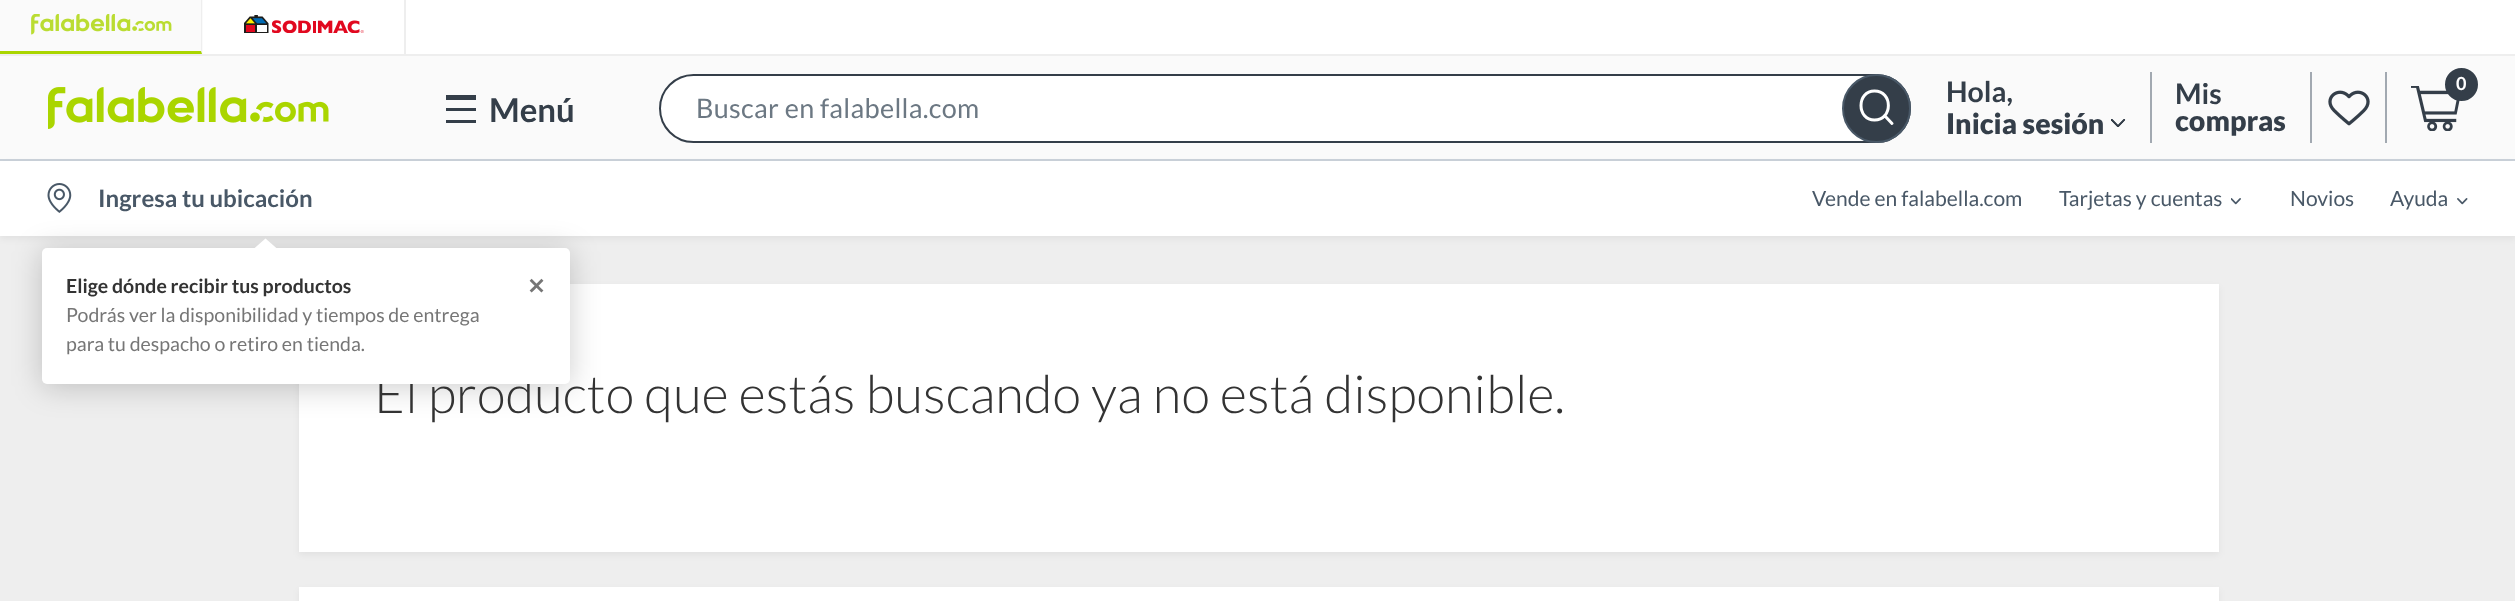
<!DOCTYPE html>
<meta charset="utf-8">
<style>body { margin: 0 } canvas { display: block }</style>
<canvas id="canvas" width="2515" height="601"></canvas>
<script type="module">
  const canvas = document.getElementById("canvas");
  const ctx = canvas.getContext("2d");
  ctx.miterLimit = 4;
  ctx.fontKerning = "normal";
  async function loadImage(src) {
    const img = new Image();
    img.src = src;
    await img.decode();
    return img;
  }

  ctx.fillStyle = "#ffffff";
  ctx.fillRect(0, 0, 2515, 601);
  ctx.fillStyle = "#fafafa";
  ctx.fillRect(0, 0, 203, 54);
  ctx.fillStyle = "#eeeeee";
  ctx.beginPath();
  ctx.moveTo(202, 0);
  ctx.lineTo(202, 54);
  ctx.lineTo(201, 51);
  ctx.lineTo(201, 0);
  ctx.closePath();
  ctx.fill();
  ctx.fillStyle = "#aad500";
  ctx.beginPath();
  ctx.moveTo(202, 54);
  ctx.lineTo(0, 54);
  ctx.lineTo(0, 51);
  ctx.lineTo(201, 51);
  ctx.closePath();
  ctx.fill();
  ctx.drawImage(await loadImage("img1.png"), 31, 14, 141, 21);
  ctx.fillStyle = "#eeeeee";
  ctx.fillRect(404, 0, 2, 54);
  ctx.drawImage(await loadImage("img2.png"), 244, 15, 120, 18);
  ctx.fillStyle = "#fafafa";
  ctx.fillRect(0, 56, 2515, 103);
  ctx.fillStyle = "#eeeeee";
  ctx.fillRect(0, 54, 2515, 2);
  ctx.drawImage(await loadImage("img3.png"), 48, 87, 281, 42);
  ctx.fillStyle = "#343e49";
  ctx.fillRect(446, 108, 30, 3);
  ctx.fillRect(446, 95, 30, 5);
  ctx.fillRect(446, 120, 30, 3);
  ctx.font = "bold 33px Lato";
  ctx.fillText("Menú", 489, 122);
  ctx.fillStyle = "#ffffff";
  ctx.beginPath();
  ctx.roundRect(660, 75, 1250, 67, 33.5);
  ctx.fill();
  ctx.strokeStyle = "#343e49";
  ctx.lineWidth = 2;
  ctx.stroke();
  ctx.letterSpacing = "0.3px";
  ctx.font = "27px Lato";
  ctx.fillStyle = "#6c7883";
  ctx.fillText("Buscar en falabella.com", 696, 118);
  ctx.fillStyle = "#343e49";
  ctx.beginPath();
  ctx.arc(1876.5, 108.5, 33.5, 0, Math.PI * 2);
  ctx.fill();
  ctx.strokeStyle = "#495867";
  ctx.stroke();
  ctx.beginPath();
  ctx.moveTo(1874.5, 120);
  ctx.bezierCurveTo(1893, 120, 1893, 91, 1874.5, 91);
  ctx.bezierCurveTo(1856.5, 91, 1856.5, 120, 1874.5, 120);
  ctx.closePath();
  ctx.moveTo(1892, 123.5);
  ctx.lineTo(1884.5, 115.5);
  ctx.strokeStyle = "#ffffff";
  ctx.lineWidth = 3;
  ctx.lineCap = "round";
  ctx.lineJoin = "round";
  ctx.stroke();
  ctx.fillStyle = "#a2a9b1";
  ctx.fillRect(2150, 72, 2, 71);
  ctx.letterSpacing = "0px";
  ctx.font = "bold 28.5px Lato";
  ctx.fillStyle = "#343e49";
  ctx.fillText("Hola,", 1946, 102);
  ctx.font = "900 28.5px Lato";
  ctx.fillText("Inicia sesión", 1946, 134);
  ctx.drawImage(await loadImage("img4.png"), 2111, 119, 15, 8);
  ctx.fillStyle = "#a2a9b1";
  ctx.fillRect(2310, 72, 2, 71);
  ctx.font = "bold 28.5px Lato";
  ctx.fillStyle = "#343e49";
  ctx.fillText("Mis", 2175, 104);
  ctx.font = "900 28.5px Lato";
  ctx.fillText("compras", 2175, 131);
  ctx.fillStyle = "#a2a9b1";
  ctx.fillRect(2385, 72, 2, 71);
  ctx.drawImage(await loadImage("img5.png"), 2328, 90, 42, 36);
  ctx.drawImage(await loadImage("img6.png"), 2411, 86, 49, 45);
  ctx.fillStyle = "#343e49";
  ctx.beginPath();
  ctx.arc(2461.5, 84.5, 15.5, 0, Math.PI * 2);
  ctx.fill();
  ctx.strokeStyle = "#343e49";
  ctx.lineWidth = 2;
  ctx.stroke();
  ctx.font = "bold 18px Lato";
  ctx.fillStyle = "#ffffff";
  ctx.fillText("0", 2456, 90);
  ctx.fillStyle = "#cad1d9";
  ctx.fillRect(0, 159, 2515, 2);
  ctx.fillStyle = "#eeeeee";
  ctx.fillRect(0, 236, 2515, 365);
  ctx.fillStyle = "rgba(0, 0, 0, 0.05)";
  ctx.filter = "blur(3px)";
  ctx.beginPath();
  ctx.rect(0, 164, 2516, 75);
  ctx.fill();
  ctx.filter = "none";
  ctx.fillStyle = "#ffffff";
  ctx.fillRect(0, 161, 2515, 75);
  ctx.drawImage(await loadImage("img7.png"), 47, 183, 25, 30);
  ctx.font = "bold 24px Lato";
  ctx.fillStyle = "#495867";
  ctx.fillText("Ingresa tu ubicación", 98, 207);
  ctx.fillStyle = "rgba(0, 0, 0, 0.05)";
  ctx.filter = "blur(3px)";
  ctx.beginPath();
  ctx.rect(299, 287, 1920, 268);
  ctx.fill();
  ctx.filter = "none";
  ctx.fillStyle = "#ffffff";
  ctx.fillRect(299, 284, 1920, 268);
  ctx.fillStyle = "rgba(0, 0, 0, 0.2)";
  ctx.filter = "blur(15px)";
  ctx.beginPath();
  ctx.roundRect(42, 251, 528, 136, 5);
  ctx.fill();
  ctx.filter = "none";
  ctx.letterSpacing = "0.1px";
  ctx.font = "300 52.5px Lato";
  ctx.fillStyle = "#333333";
  ctx.fillText("El producto que estás buscando ya no está disponible.", 374, 413);
  ctx.fillStyle = "#ffffff";
  ctx.beginPath();
  ctx.roundRect(42, 248, 528, 136, 5);
  ctx.fill();
  ctx.beginPath();
  ctx.moveTo(277.5, 249);
  ctx.lineTo(253.5, 249);
  ctx.lineTo(265.5, 238.5);
  ctx.closePath();
  ctx.fill();
  ctx.letterSpacing = "0px";
  ctx.font = "bold 19.5px Lato";
  ctx.fillStyle = "#333333";
  ctx.fillText("Elige dónde recibir tus productos", 66, 293);
  ctx.font = "bold 22px DejaVu Sans";
  ctx.fillStyle = "#767676";
  ctx.fillText("✕", 527, 294);
  ctx.font = "19.5px Lato";
  ctx.fillText("Podrás ver la disponibilidad y tiempos de entrega", 66, 322);
  ctx.fillText("para tu despacho o retiro en tienda.", 66, 351);
  ctx.font = "21px Lato";
  ctx.fillStyle = "#495867";
  ctx.fillText("Vende en falabella.com", 1812, 206);
  ctx.fillText("Tarjetas y cuentas", 2059, 206);
  ctx.drawImage(await loadImage("img8.png"), 2231, 198, 10, 7);
  ctx.fillText("Novios", 2290, 206);
  ctx.fillText("Ayuda", 2390, 206);
  ctx.drawImage(await loadImage("img9.png"), 2457, 198, 11, 7);
  ctx.fillStyle = "rgba(0, 0, 0, 0.05)";
  ctx.filter = "blur(3px)";
  ctx.beginPath();
  ctx.rect(299, 590, 1920, 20);
  ctx.fill();
  ctx.filter = "none";
  ctx.fillStyle = "#ffffff";
  ctx.fillRect(299, 587, 1920, 14);
</script>
